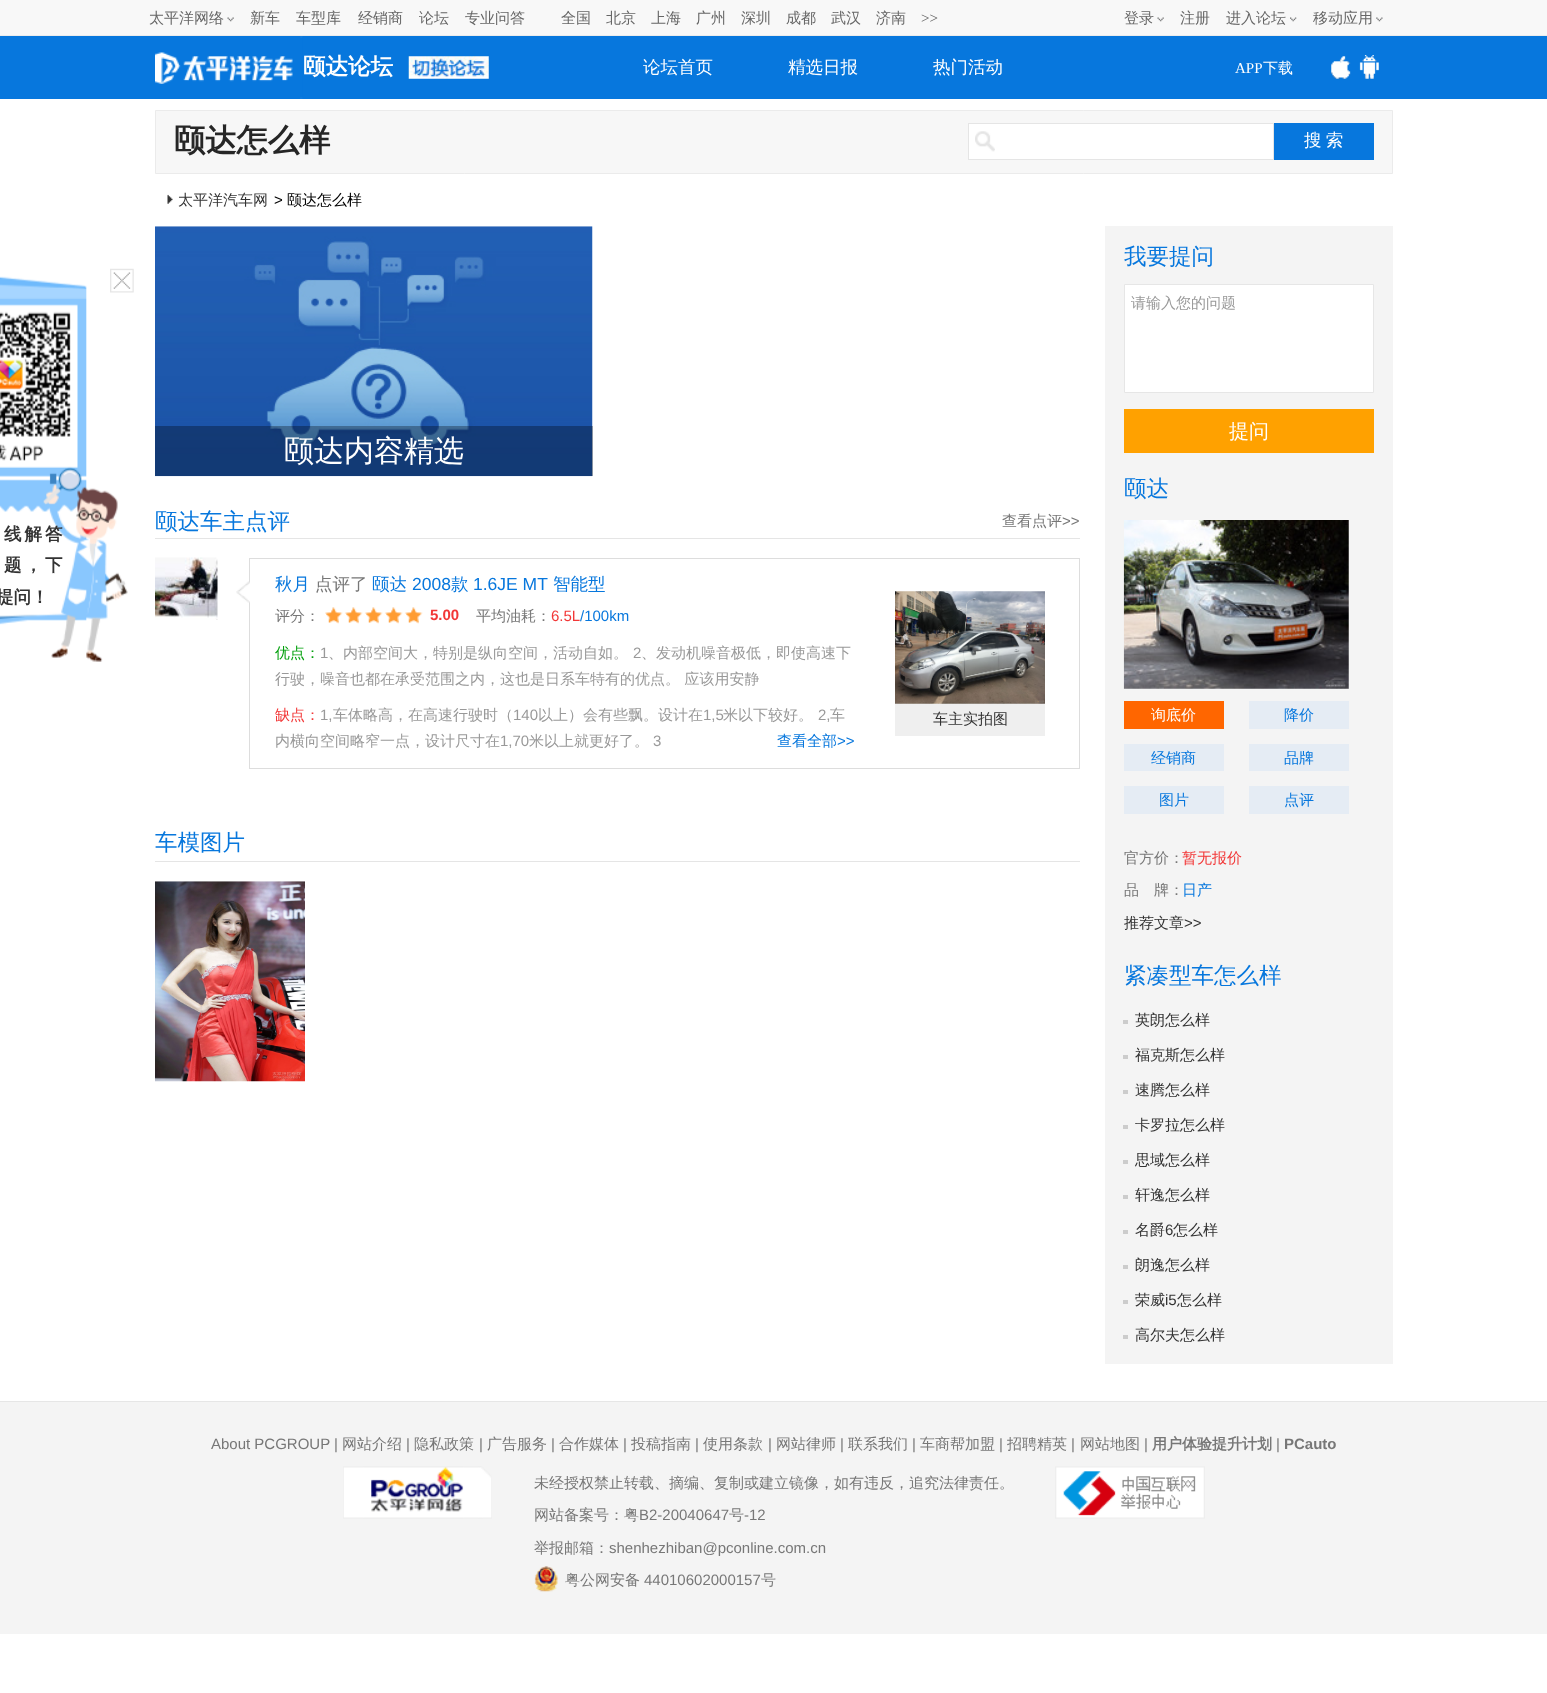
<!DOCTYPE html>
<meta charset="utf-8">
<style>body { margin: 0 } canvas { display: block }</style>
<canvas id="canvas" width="1547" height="1693"></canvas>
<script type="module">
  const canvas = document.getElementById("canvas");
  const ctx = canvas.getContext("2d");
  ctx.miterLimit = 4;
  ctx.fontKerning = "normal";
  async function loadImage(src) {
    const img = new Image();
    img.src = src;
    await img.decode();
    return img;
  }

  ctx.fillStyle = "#ffffff";
  ctx.fillRect(0, 0, 1547, 1693);
  ctx.fillStyle = "#f8f8f8";
  ctx.fillRect(0, 0, 1547, 35);
  ctx.fillStyle = "#ececec";
  ctx.fillRect(0, 35, 1547, 1);
  ctx.font = "500 15px WenQuanYi Zen Hei";
  ctx.fillStyle = "#666666";
  ctx.fillText("太平洋网络", 149, 23);
  ctx.drawImage(await loadImage("img1.png"), 227, 17, 7, 5);
  ctx.fillText("新车", 250, 23);
  ctx.fillText("车型库", 296, 23);
  ctx.fillText("经销商", 358, 23);
  ctx.fillText("论坛", 419, 23);
  ctx.fillText("专业问答", 465, 23);
  ctx.fillText("全国", 561, 23);
  ctx.fillText("北京", 606, 23);
  ctx.fillText("上海", 651, 23);
  ctx.fillText("广州", 696, 23);
  ctx.fillText("深圳", 741, 23);
  ctx.fillText("成都", 786, 23);
  ctx.fillText("武汉", 831, 23);
  ctx.fillText("济南", 876, 23);
  ctx.font = "15px Liberation Serif";
  ctx.fillText(">>", 921, 23);
  ctx.font = "500 15px WenQuanYi Zen Hei";
  ctx.fillText("登录", 1124, 23);
  ctx.drawImage(await loadImage("img2.png"), 1157, 17, 7, 5);
  ctx.fillText("注册", 1180, 23);
  ctx.fillText("进入论坛", 1226, 23);
  ctx.drawImage(await loadImage("img3.png"), 1290, 17, 7, 5);
  ctx.fillText("移动应用", 1313, 23);
  ctx.drawImage(await loadImage("img4.png"), 1376, 17, 7, 5);
  ctx.fillStyle = "#0777dd";
  ctx.fillRect(0, 36, 1547, 63);
  ctx.drawImage(await loadImage("img5.png"), 155, 36, 148, 63);
  ctx.font = "bold 22.5px WenQuanYi Zen Hei";
  ctx.fillStyle = "#ffffff";
  ctx.fillText("颐达论坛", 303, 74);
  ctx.drawImage(await loadImage("img6.png"), 408, 56, 81, 23);
  ctx.font = "500 17.5px WenQuanYi Zen Hei";
  ctx.fillText("论坛首页", 643, 73);
  ctx.fillText("精选日报", 788, 73);
  ctx.fillText("热门活动", 933, 73);
  ctx.drawImage(await loadImage("img7.png"), 1331, 55, 48, 24);
  ctx.font = "15px Liberation Serif";
  ctx.fillText("APP", 1235, 73);
  ctx.font = "500 15px WenQuanYi Zen Hei";
  ctx.fillText("下载", 1263, 73);
  ctx.drawImage(await loadImage("img8.png"), 0, 276, 128, 386);
  ctx.drawImage(await loadImage("img9.png"), 110, 268, 24, 25);
  ctx.letterSpacing = "3px";
  ctx.font = "bold 17.5px WenQuanYi Zen Hei";
  ctx.fillStyle = "#333333";
  ctx.fillText("线解答", 4, 540);
  ctx.fillText("题，下", 4, 571);
  ctx.letterSpacing = "0px";
  ctx.fillText("提问！", -4, 603);
  ctx.fillStyle = "#f7f7f7";
  ctx.beginPath();
  ctx.rect(155.5, 110.5, 1237, 63);
  ctx.fill();
  ctx.strokeStyle = "#ebebeb";
  ctx.stroke();
  ctx.font = "bold 31.25px WenQuanYi Zen Hei";
  ctx.fillStyle = "#262626";
  ctx.fillText("颐达怎么样", 174, 151);
  ctx.fillStyle = "#ffffff";
  ctx.fillRect(969, 124, 304, 35);
  ctx.drawImage(await loadImage("img10.png"), 975, 131, 20, 21);
  ctx.strokeStyle = "#e5e5e5";
  ctx.strokeRect(968.5, 123.5, 305, 36);
  ctx.fillStyle = "#0777dd";
  ctx.fillRect(1274, 123, 100, 37);
  ctx.wordSpacing = "-1px";
  ctx.font = "500 17.5px WenQuanYi Zen Hei";
  ctx.fillStyle = "#ffffff";
  ctx.fillText("搜 索", 1304, 146);
  ctx.drawImage(await loadImage("img11.png"), 167, 194, 6, 10);
  ctx.wordSpacing = "0px";
  ctx.font = "500 15px WenQuanYi Zen Hei";
  ctx.fillStyle = "#333333";
  ctx.fillText("太平洋汽车网", 178, 205);
  ctx.font = "15px Liberation Sans";
  ctx.fillStyle = "#000000";
  ctx.fillText(">", 274, 205);
  ctx.font = "500 15px WenQuanYi Zen Hei";
  ctx.fillText("颐达怎么样", 287, 205);
  ctx.drawImage(await loadImage("img12.png"), 155, 226, 438, 251);
  ctx.fillStyle = "rgba(0, 0, 0, 0.3)";
  ctx.fillRect(155, 426, 438, 50);
  ctx.font = "500 30px WenQuanYi Zen Hei";
  ctx.fillStyle = "#ffffff";
  ctx.fillText("颐达内容精选", 284, 461);
  ctx.fillStyle = "#e5e5e5";
  ctx.fillRect(155, 538, 925, 1);
  ctx.font = "500 22.5px WenQuanYi Zen Hei";
  ctx.fillStyle = "#0777dd";
  ctx.fillText("颐达车主点评", 155, 529);
  ctx.font = "500 15px WenQuanYi Zen Hei";
  ctx.fillStyle = "#777777";
  ctx.fillText("查看点评", 1002, 526);
  ctx.font = "15px Liberation Sans";
  ctx.fillText(">>", 1062, 526);
  ctx.drawImage(await loadImage("img13.png"), 155, 557, 63, 63);
  ctx.strokeStyle = "#dddddd";
  ctx.strokeRect(249.5, 558.5, 830, 210);
  ctx.drawImage(await loadImage("img14.png"), 236, 581, 14, 22);
  ctx.font = "500 17.5px WenQuanYi Zen Hei";
  ctx.fillStyle = "#0777dd";
  ctx.fillText("秋月", 275, 590);
  ctx.fillStyle = "#777777";
  ctx.fillText("点评了", 315, 590);
  ctx.fillStyle = "#0777dd";
  ctx.fillText("颐达", 372, 590);
  ctx.font = "17.5px Liberation Sans";
  ctx.fillText("2008", 412, 590);
  ctx.font = "500 17.5px WenQuanYi Zen Hei";
  ctx.fillText("款", 451, 590);
  ctx.font = "17.5px Liberation Sans";
  ctx.fillText("1.6JE MT", 473, 590);
  ctx.font = "500 17.5px WenQuanYi Zen Hei";
  ctx.fillText("智能型", 553, 590);
  ctx.font = "500 15px WenQuanYi Zen Hei";
  ctx.fillStyle = "#777777";
  ctx.fillText("评分：", 275, 621);
  ctx.drawImage(await loadImage("img15.png"), 325, 607, 97, 1);
  ctx.drawImage(await loadImage("img16.png"), 325, 607, 98, 17);
  ctx.font = "bold 15px Liberation Sans";
  ctx.fillStyle = "#f23737";
  ctx.fillText("5.00", 430, 620);
  ctx.font = "500 15px WenQuanYi Zen Hei";
  ctx.fillStyle = "#777777";
  ctx.fillText("平均油耗：", 476, 621);
  ctx.font = "15px Liberation Sans";
  ctx.fillStyle = "#f23737";
  ctx.fillText("6.5L", 551, 621);
  ctx.fillStyle = "#0777dd";
  ctx.fillText("/100km", 580, 621);
  ctx.font = "500 15px WenQuanYi Zen Hei";
  ctx.fillStyle = "#00a00b";
  ctx.fillText("优点：", 275, 658);
  ctx.font = "15px Liberation Sans";
  ctx.fillStyle = "#999999";
  ctx.fillText("1", 320, 658);
  ctx.font = "500 15px WenQuanYi Zen Hei";
  ctx.fillText("、内部空间大，特别是纵向空间，活动自如。", 328, 658);
  ctx.font = "15px Liberation Sans";
  ctx.fillText("2", 633, 658);
  ctx.font = "500 15px WenQuanYi Zen Hei";
  ctx.fillText("、发动机噪音极低，即使高速下", 641, 658);
  ctx.fillText("行驶，噪音也都在承受范围之内，这也是日系车特有的优点。 应该用安静", 275, 684);
  ctx.fillStyle = "#f23737";
  ctx.fillText("缺点：", 275, 720);
  ctx.font = "15px Liberation Sans";
  ctx.fillStyle = "#999999";
  ctx.fillText("1,", 320, 720);
  ctx.font = "500 15px WenQuanYi Zen Hei";
  ctx.fillText("车体略高，在高速行驶时（", 333, 720);
  ctx.font = "15px Liberation Sans";
  ctx.fillText("140", 513, 720);
  ctx.font = "500 15px WenQuanYi Zen Hei";
  ctx.fillText("以上）会有些飘。设计在", 538, 720);
  ctx.font = "15px Liberation Sans";
  ctx.fillText("1,5", 703, 720);
  ctx.font = "500 15px WenQuanYi Zen Hei";
  ctx.fillText("米以下较好。", 723, 720);
  ctx.font = "15px Liberation Sans";
  ctx.fillText("2,", 818, 720);
  ctx.font = "500 15px WenQuanYi Zen Hei";
  ctx.fillText("车", 830, 720);
  ctx.fillText("内横向空间略窄一点，设计尺寸在", 275, 746);
  ctx.font = "15px Liberation Sans";
  ctx.fillText("1,70", 500, 746);
  ctx.font = "500 15px WenQuanYi Zen Hei";
  ctx.fillText("米以上就更好了。", 529, 746);
  ctx.font = "15px Liberation Sans";
  ctx.fillText("3", 653, 746);
  ctx.font = "500 15px WenQuanYi Zen Hei";
  ctx.fillStyle = "#0777dd";
  ctx.fillText("查看全部", 777, 746);
  ctx.font = "15px Liberation Sans";
  ctx.fillText(">>", 837, 746);
  ctx.drawImage(await loadImage("img17.png"), 895, 591, 150, 113);
  ctx.fillStyle = "#efefef";
  ctx.fillRect(895, 704, 150, 32);
  ctx.font = "500 15px WenQuanYi Zen Hei";
  ctx.fillStyle = "#333333";
  ctx.fillText("车主实拍图", 933, 724);
  ctx.fillStyle = "#e5e5e5";
  ctx.fillRect(155, 861, 925, 1);
  ctx.font = "500 22.5px WenQuanYi Zen Hei";
  ctx.fillStyle = "#0777dd";
  ctx.fillText("车模图片", 155, 850);
  ctx.drawImage(await loadImage("img18.png"), 155, 881, 150, 201);
  ctx.fillStyle = "#f4f4f4";
  ctx.fillRect(1105, 226, 288, 1138);
  ctx.fillStyle = "#0777dd";
  ctx.fillText("我要提问", 1124, 264);
  ctx.fillStyle = "#ffffff";
  ctx.beginPath();
  ctx.rect(1124.5, 284.5, 249, 108);
  ctx.fill();
  ctx.strokeStyle = "#e6e6e6";
  ctx.stroke();
  ctx.font = "500 15px WenQuanYi Zen Hei";
  ctx.fillStyle = "#999999";
  ctx.fillText("请输入您的问题", 1131, 308);
  ctx.fillStyle = "#ffa100";
  ctx.fillRect(1124, 409, 250, 44);
  ctx.font = "500 20px WenQuanYi Zen Hei";
  ctx.fillStyle = "#ffffff";
  ctx.fillText("提问", 1229, 438);
  ctx.font = "500 22.5px WenQuanYi Zen Hei";
  ctx.fillStyle = "#0777dd";
  ctx.fillText("颐达", 1124, 496);
  ctx.drawImage(await loadImage("img19.png"), 1123, 520, 226, 169);
  ctx.fillStyle = "#ff6600";
  ctx.fillRect(1124, 701, 100, 28);
  ctx.font = "500 15px WenQuanYi Zen Hei";
  ctx.fillStyle = "#ffffff";
  ctx.fillText("询底价", 1151, 720);
  ctx.fillStyle = "#e5ecf4";
  ctx.fillRect(1249, 701, 100, 28);
  ctx.fillStyle = "#0777dd";
  ctx.fillText("降价", 1284, 720);
  ctx.fillStyle = "#e5ecf4";
  ctx.fillRect(1124, 744, 100, 27);
  ctx.fillStyle = "#0777dd";
  ctx.fillText("经销商", 1151, 763);
  ctx.fillStyle = "#e5ecf4";
  ctx.fillRect(1249, 744, 100, 27);
  ctx.fillStyle = "#0777dd";
  ctx.fillText("品牌", 1284, 763);
  ctx.fillStyle = "#e5ecf4";
  ctx.fillRect(1124, 786, 100, 28);
  ctx.fillStyle = "#0777dd";
  ctx.fillText("图片", 1159, 805);
  ctx.fillStyle = "#e5ecf4";
  ctx.fillRect(1249, 786, 100, 28);
  ctx.fillStyle = "#0777dd";
  ctx.fillText("点评", 1284, 805);
  ctx.fillStyle = "#777777";
  ctx.fillText("官方价：", 1124, 863);
  ctx.fillStyle = "#f23737";
  ctx.fillText("暂无报价", 1182, 863);
  ctx.fillStyle = "#777777";
  ctx.fillText("品", 1124, 895);
  ctx.fillText("牌：", 1154, 895);
  ctx.fillStyle = "#0777dd";
  ctx.fillText("日产", 1182, 895);
  ctx.fillStyle = "#333333";
  ctx.fillText("推荐文章", 1124, 928);
  ctx.font = "15px Liberation Sans";
  ctx.fillText(">>", 1184, 928);
  ctx.font = "500 22.5px WenQuanYi Zen Hei";
  ctx.fillStyle = "#0777dd";
  ctx.fillText("紧凑型车怎么样", 1124, 983);
  ctx.fillStyle = "#cccccc";
  ctx.fillRect(1123, 1020, 5, 4);
  ctx.font = "500 15px WenQuanYi Zen Hei";
  ctx.fillStyle = "#333333";
  ctx.fillText("英朗怎么样", 1135, 1025);
  ctx.fillStyle = "#cccccc";
  ctx.fillRect(1123, 1055, 5, 4);
  ctx.fillStyle = "#333333";
  ctx.fillText("福克斯怎么样", 1135, 1060);
  ctx.fillStyle = "#cccccc";
  ctx.fillRect(1123, 1090, 5, 4);
  ctx.fillStyle = "#333333";
  ctx.fillText("速腾怎么样", 1135, 1095);
  ctx.fillStyle = "#cccccc";
  ctx.fillRect(1123, 1125, 5, 4);
  ctx.fillStyle = "#333333";
  ctx.fillText("卡罗拉怎么样", 1135, 1130);
  ctx.fillStyle = "#cccccc";
  ctx.fillRect(1123, 1160, 5, 4);
  ctx.fillStyle = "#333333";
  ctx.fillText("思域怎么样", 1135, 1165);
  ctx.fillStyle = "#cccccc";
  ctx.fillRect(1123, 1195, 5, 4);
  ctx.fillStyle = "#333333";
  ctx.fillText("轩逸怎么样", 1135, 1200);
  ctx.fillStyle = "#cccccc";
  ctx.fillRect(1123, 1230, 5, 4);
  ctx.fillStyle = "#333333";
  ctx.fillText("名爵", 1135, 1235);
  ctx.font = "15px Liberation Sans";
  ctx.fillText("6", 1165, 1235);
  ctx.font = "500 15px WenQuanYi Zen Hei";
  ctx.fillText("怎么样", 1173, 1235);
  ctx.fillStyle = "#cccccc";
  ctx.fillRect(1123, 1265, 5, 4);
  ctx.fillStyle = "#333333";
  ctx.fillText("朗逸怎么样", 1135, 1270);
  ctx.fillStyle = "#cccccc";
  ctx.fillRect(1123, 1300, 5, 4);
  ctx.fillStyle = "#333333";
  ctx.fillText("荣威", 1135, 1305);
  ctx.font = "15px Liberation Sans";
  ctx.fillText("i5", 1165, 1305);
  ctx.font = "500 15px WenQuanYi Zen Hei";
  ctx.fillText("怎么样", 1177, 1305);
  ctx.fillStyle = "#cccccc";
  ctx.fillRect(1123, 1335, 5, 4);
  ctx.fillStyle = "#333333";
  ctx.fillText("高尔夫怎么样", 1135, 1340);
  ctx.fillStyle = "#f4f4f4";
  ctx.fillRect(0, 1402, 1547, 232);
  ctx.fillStyle = "#e6e6e6";
  ctx.fillRect(0, 1401, 1547, 1);
  ctx.font = "15px Liberation Sans";
  ctx.fillStyle = "#777777";
  ctx.fillText("About PCGROUP |", 211, 1449);
  ctx.font = "500 15px WenQuanYi Zen Hei";
  ctx.fillText("网站介绍", 342, 1449);
  ctx.font = "15px Liberation Sans";
  ctx.fillText("|", 406, 1449);
  ctx.font = "500 15px WenQuanYi Zen Hei";
  ctx.fillText("隐私政策", 414, 1449);
  ctx.font = "15px Liberation Sans";
  ctx.fillText("|", 479, 1449);
  ctx.font = "500 15px WenQuanYi Zen Hei";
  ctx.fillText("广告服务", 487, 1449);
  ctx.font = "15px Liberation Sans";
  ctx.fillText("|", 551, 1449);
  ctx.font = "500 15px WenQuanYi Zen Hei";
  ctx.fillText("合作媒体", 559, 1449);
  ctx.font = "15px Liberation Sans";
  ctx.fillText("|", 623, 1449);
  ctx.font = "500 15px WenQuanYi Zen Hei";
  ctx.fillText("投稿指南", 631, 1449);
  ctx.font = "15px Liberation Sans";
  ctx.fillText("|", 695, 1449);
  ctx.font = "500 15px WenQuanYi Zen Hei";
  ctx.fillText("使用条款", 703, 1449);
  ctx.font = "15px Liberation Sans";
  ctx.fillText("|", 768, 1449);
  ctx.font = "500 15px WenQuanYi Zen Hei";
  ctx.fillText("网站律师", 776, 1449);
  ctx.font = "15px Liberation Sans";
  ctx.fillText("|", 840, 1449);
  ctx.font = "500 15px WenQuanYi Zen Hei";
  ctx.fillText("联系我们", 848, 1449);
  ctx.font = "15px Liberation Sans";
  ctx.fillText("|", 912, 1449);
  ctx.font = "500 15px WenQuanYi Zen Hei";
  ctx.fillText("车商帮加盟", 920, 1449);
  ctx.font = "15px Liberation Sans";
  ctx.fillText("|", 999, 1449);
  ctx.font = "500 15px WenQuanYi Zen Hei";
  ctx.fillText("招聘精英", 1007, 1449);
  ctx.font = "15px Liberation Sans";
  ctx.fillText("|", 1071, 1449);
  ctx.font = "500 15px WenQuanYi Zen Hei";
  ctx.fillText("网站地图", 1080, 1449);
  ctx.font = "15px Liberation Sans";
  ctx.fillText("|", 1144, 1449);
  ctx.font = "bold 15px WenQuanYi Zen Hei";
  ctx.fillText("用户体验提升计划", 1152, 1449);
  ctx.font = "15px Liberation Sans";
  ctx.fillText("|", 1276, 1449);
  ctx.font = "bold 15px Liberation Sans";
  ctx.fillText("PCauto", 1284, 1449);
  ctx.drawImage(await loadImage("img20.png"), 343, 1466, 149, 53);
  ctx.font = "500 15px WenQuanYi Zen Hei";
  ctx.fillText("未经授权禁止转载、摘编、复制或建立镜像，如有违反，追究法律责任。", 534, 1488);
  ctx.fillText("网站备案号：粤", 534, 1520);
  ctx.font = "15px Liberation Sans";
  ctx.fillText("B2-20040647", 639, 1520);
  ctx.font = "500 15px WenQuanYi Zen Hei";
  ctx.fillText("号", 729, 1520);
  ctx.font = "15px Liberation Sans";
  ctx.fillText("-12", 744, 1520);
  ctx.font = "500 15px WenQuanYi Zen Hei";
  ctx.fillText("举报邮箱：", 534, 1553);
  ctx.font = "15px Liberation Sans";
  ctx.fillText("shenhezhiban@pconline.com.cn", 609, 1553);
  ctx.drawImage(await loadImage("img21.png"), 534, 1566, 24, 26);
  ctx.font = "500 15px WenQuanYi Zen Hei";
  ctx.fillText("粤公网安备", 565, 1585);
  ctx.font = "15px Liberation Sans";
  ctx.fillText("44010602000157", 644, 1585);
  ctx.font = "500 15px WenQuanYi Zen Hei";
  ctx.fillText("号", 761, 1585);
  ctx.drawImage(await loadImage("img22.png"), 1055, 1466, 150, 53);
</script>
